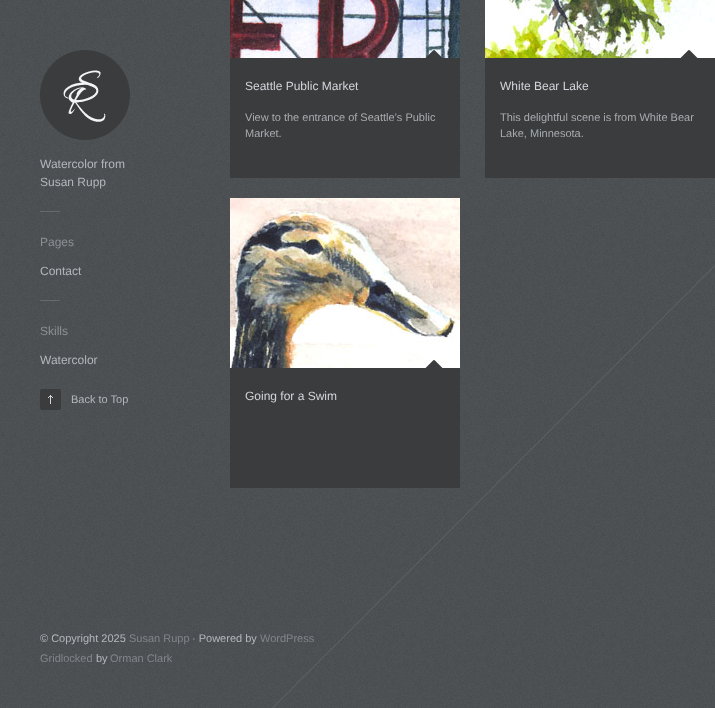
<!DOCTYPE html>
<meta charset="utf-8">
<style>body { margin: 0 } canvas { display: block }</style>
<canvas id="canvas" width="715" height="708"></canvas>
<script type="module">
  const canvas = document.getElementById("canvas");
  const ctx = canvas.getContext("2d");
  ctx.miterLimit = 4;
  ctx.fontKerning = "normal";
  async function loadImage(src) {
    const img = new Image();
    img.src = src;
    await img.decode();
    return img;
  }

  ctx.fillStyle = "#ffffff";
  ctx.fillRect(0, 0, 715, 708);
  ctx.drawImage(await loadImage("img1.png"), 0, 0, 715, 708);
  ctx.drawImage(await loadImage("img2.png"), 40, 50, 90, 90);
  ctx.font = "12px Liberation Sans";
  ctx.fillStyle = "#b3b7bc";
  ctx.fillText("Watercolor from", 40, 168);
  ctx.fillText("Susan Rupp", 40, 186);
  ctx.fillStyle = "#66696d";
  ctx.fillRect(40, 211, 20, 1);
  ctx.fillStyle = "#8d9094";
  ctx.fillText("Pages", 40, 246);
  ctx.fillStyle = "#b3b7bc";
  ctx.fillText("Contact", 40, 275);
  ctx.fillStyle = "#66696d";
  ctx.fillRect(40, 300, 20, 1);
  ctx.fillStyle = "#8d9094";
  ctx.fillText("Skills", 40, 335);
  ctx.fillStyle = "#b3b7bc";
  ctx.fillText("Watercolor", 40, 364);
  ctx.fillStyle = "#3a3c3d";
  ctx.beginPath();
  ctx.roundRect(40, 389, 21, 21, 2);
  ctx.fill();
  ctx.drawImage(await loadImage("img3.png"), 48, 395, 5, 9);
  ctx.font = "11px Liberation Sans";
  ctx.fillStyle = "#b3b7bc";
  ctx.fillText("Back to Top", 71, 403);
  ctx.fillStyle = "#3a3c3d";
  ctx.fillRect(230, 58, 230, 120);
  ctx.drawImage(await loadImage("img4.png"), 230, 0, 230, 58);
  ctx.drawImage(await loadImage("img5.png"), 425, 50, 18, 8);
  ctx.font = "12px Liberation Sans";
  ctx.fillStyle = "#d2d6db";
  ctx.fillText("Seattle Public Market", 245, 90);
  ctx.font = "11px Liberation Sans";
  ctx.fillStyle = "#a8acb1";
  ctx.fillText("View to the entrance of Seattle’s Public", 245, 121);
  ctx.fillText("Market.", 245, 137);
  ctx.fillStyle = "#3a3c3d";
  ctx.fillRect(485, 58, 230, 120);
  ctx.drawImage(await loadImage("img6.png"), 485, 0, 230, 58);
  ctx.drawImage(await loadImage("img7.png"), 680, 50, 18, 8);
  ctx.font = "12px Liberation Sans";
  ctx.fillStyle = "#d2d6db";
  ctx.fillText("White Bear Lake", 500, 90);
  ctx.font = "11px Liberation Sans";
  ctx.fillStyle = "#a8acb1";
  ctx.fillText("This delightful scene is from White Bear", 500, 121);
  ctx.fillText("Lake, Minnesota.", 500, 137);
  ctx.drawImage(await loadImage("img10.png"), 272, 265, 443, 443);
  ctx.fillStyle = "#3a3c3d";
  ctx.fillRect(230, 368, 230, 120);
  ctx.drawImage(await loadImage("img8.png"), 230, 198, 230, 170);
  ctx.drawImage(await loadImage("img9.png"), 425, 360, 18, 8);
  ctx.font = "12px Liberation Sans";
  ctx.fillStyle = "#d2d6db";
  ctx.fillText("Going for a Swim", 245, 400);
  ctx.font = "11px Liberation Sans";
  ctx.fillStyle = "#b3b7bc";
  ctx.fillText("© Copyright 2025", 40, 642);
  ctx.fillStyle = "#81858a";
  ctx.fillText("Susan Rupp", 129, 642);
  ctx.fillStyle = "#b3b7bc";
  ctx.fillText("· Powered by", 192, 642);
  ctx.fillStyle = "#81858a";
  ctx.fillText("WordPress", 260, 642);
  ctx.fillText("Gridlocked", 40, 662);
  ctx.fillStyle = "#b3b7bc";
  ctx.fillText("by", 96, 662);
  ctx.fillStyle = "#81858a";
  ctx.fillText("Orman Clark", 110, 662);
</script>
